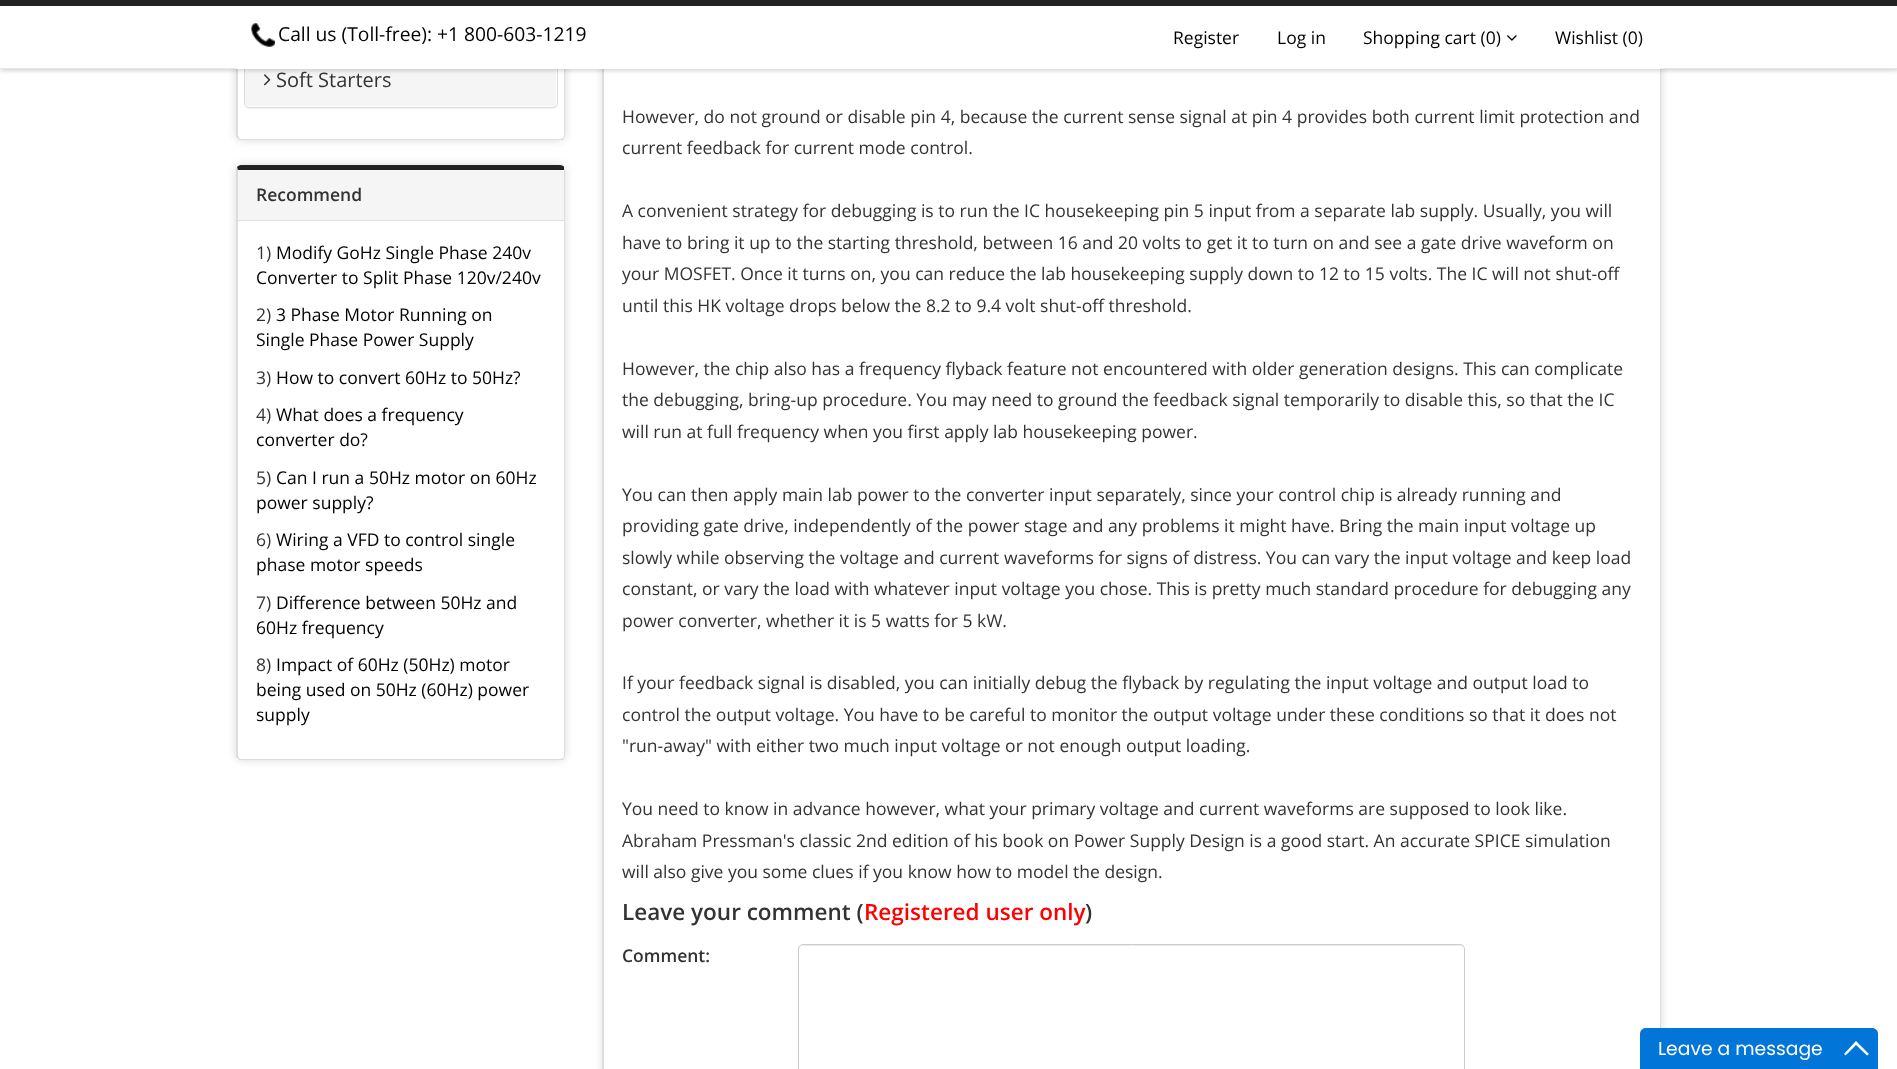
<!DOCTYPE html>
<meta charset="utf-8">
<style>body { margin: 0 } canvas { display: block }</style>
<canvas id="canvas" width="1897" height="1069"></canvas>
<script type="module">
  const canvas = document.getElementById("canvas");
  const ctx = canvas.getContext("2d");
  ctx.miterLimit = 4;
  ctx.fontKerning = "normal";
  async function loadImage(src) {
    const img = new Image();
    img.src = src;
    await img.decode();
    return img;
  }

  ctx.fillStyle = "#ffffff";
  ctx.fillRect(0, 0, 1897, 1069);
  ctx.save();
  ctx.beginPath();
  ctx.moveTo(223, 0);
  ctx.lineTo(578, 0);
  ctx.lineTo(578, 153);
  ctx.lineTo(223, 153);
  ctx.closePath();
  ctx.moveTo(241, -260);
  ctx.lineTo(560, -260);
  ctx.bezierCurveTo(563, -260, 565, -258, 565, -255);
  ctx.lineTo(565, 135);
  ctx.bezierCurveTo(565, 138, 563, 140, 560, 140);
  ctx.lineTo(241, 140);
  ctx.bezierCurveTo(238, 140, 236, 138, 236, 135);
  ctx.lineTo(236, -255);
  ctx.bezierCurveTo(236, -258, 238, -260, 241, -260);
  ctx.closePath();
  ctx.clip("evenodd");
  ctx.fillStyle = "rgba(0, 0, 0, 0.15)";
  ctx.filter = "blur(4px)";
  ctx.beginPath();
  ctx.roundRect(236, -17, 329, 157, 5);
  ctx.fill();
  ctx.filter = "none";
  ctx.restore();
  ctx.fillStyle = "#dddddd";
  ctx.beginPath();
  ctx.moveTo(565, 135);
  ctx.lineTo(565, -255);
  ctx.lineTo(564, -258);
  ctx.lineTo(564, -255);
  ctx.lineTo(564, 135);
  ctx.lineTo(563, 138);
  ctx.lineTo(564, 139);
  ctx.bezierCurveTo(564, 138, 565, 136, 565, 135);
  ctx.closePath();
  ctx.fill();
  ctx.beginPath();
  ctx.moveTo(241, 140);
  ctx.lineTo(560, 140);
  ctx.bezierCurveTo(562, 140, 563, 140, 564, 139);
  ctx.lineTo(563, 138);
  ctx.bezierCurveTo(562, 138, 561, 139, 560, 139);
  ctx.lineTo(241, 139);
  ctx.bezierCurveTo(240, 139, 239, 138, 239, 138);
  ctx.lineTo(238, 139);
  ctx.bezierCurveTo(238, 140, 240, 140, 241, 140);
  ctx.closePath();
  ctx.fill();
  ctx.beginPath();
  ctx.moveTo(236, -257);
  ctx.lineTo(237, -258);
  ctx.lineTo(238, -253);
  ctx.lineTo(238, 135);
  ctx.lineTo(239, 138);
  ctx.lineTo(238, 139);
  ctx.lineTo(236, 137);
  ctx.closePath();
  ctx.fill();
  ctx.fillStyle = "rgba(0, 0, 0, 0.05)";
  ctx.filter = "blur(0.5px)";
  ctx.beginPath();
  ctx.roundRect(244, 53, 314, 56, 5);
  ctx.fill();
  ctx.filter = "none";
  ctx.fillStyle = "#ffffff";
  ctx.beginPath();
  ctx.roundRect(244.5, 51.5, 313, 56, 4.5);
  ctx.fill();
  ctx.strokeStyle = "#dddddd";
  ctx.stroke();
  ctx.fillStyle = "#f5f5f5";
  ctx.fillRect(245, 69, 311, 37);
  ctx.drawImage(await loadImage("img3.png"), 263, 74, 8, 12);
  ctx.save();
  ctx.beginPath();
  ctx.moveTo(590, 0);
  ctx.lineTo(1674, 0);
  ctx.lineTo(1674, 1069);
  ctx.lineTo(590, 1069);
  ctx.closePath();
  ctx.moveTo(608, -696);
  ctx.lineTo(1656, -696);
  ctx.bezierCurveTo(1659, -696, 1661, -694, 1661, -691);
  ctx.lineTo(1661, 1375);
  ctx.bezierCurveTo(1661, 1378, 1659, 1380, 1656, 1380);
  ctx.lineTo(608, 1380);
  ctx.bezierCurveTo(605, 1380, 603, 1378, 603, 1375);
  ctx.lineTo(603, -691);
  ctx.bezierCurveTo(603, -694, 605, -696, 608, -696);
  ctx.closePath();
  ctx.clip("evenodd");
  ctx.fillStyle = "rgba(0, 0, 0, 0.15)";
  ctx.filter = "blur(4px)";
  ctx.beginPath();
  ctx.roundRect(603, -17, 1058, 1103, 5);
  ctx.fill();
  ctx.filter = "none";
  ctx.restore();
  ctx.fillStyle = "#dddddd";
  ctx.beginPath();
  ctx.moveTo(1661, -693);
  ctx.lineTo(1661, -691);
  ctx.lineTo(1661, 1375);
  ctx.bezierCurveTo(1661, 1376, 1661, 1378, 1660, 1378);
  ctx.lineTo(1659, 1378);
  ctx.lineTo(1660, 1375);
  ctx.lineTo(1660, -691);
  ctx.closePath();
  ctx.fill();
  ctx.beginPath();
  ctx.moveTo(602, -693);
  ctx.lineTo(603, -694);
  ctx.lineTo(604, -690);
  ctx.lineTo(604, 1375);
  ctx.lineTo(605, 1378);
  ctx.lineTo(604, 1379);
  ctx.lineTo(602, 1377);
  ctx.closePath();
  ctx.fill();
  ctx.fillStyle = "rgba(0, 0, 0, 0.16)";
  ctx.filter = "blur(2px)";
  ctx.beginPath();
  ctx.rect(0, 3, 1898, 68);
  ctx.fill();
  ctx.filter = "none";
  ctx.fillStyle = "#ffffff";
  ctx.fillRect(0, 6, 1897, 62);
  ctx.fillStyle = "#222222";
  ctx.fillRect(0, 0, 1897, 6);
  ctx.fillStyle = "#e7e7e7";
  ctx.fillRect(0, 68, 1897, 1);
  ctx.fillStyle = "#ffffff";
  ctx.fillRect(236, 68, 1425, 1);
  ctx.drawImage(await loadImage("img1.png"), 251, 23, 24, 24);
  ctx.font = "19.25px Open Sans";
  ctx.fillStyle = "#000000";
  ctx.fillText("Call us (Toll-free): +1 800-603-1219", 278, 41);
  ctx.font = "17.5px Open Sans";
  ctx.fillText("Register", 1173, 44);
  ctx.fillText("Log in", 1277, 44);
  ctx.fillText("Shopping cart (0)", 1363, 44);
  ctx.drawImage(await loadImage("img2.png"), 1507, 35, 10, 6);
  ctx.fillText("Wishlist (0)", 1555, 44);
  ctx.font = "20px Open Sans";
  ctx.fillStyle = "#333333";
  ctx.fillText("Soft Starters", 276, 87);
  ctx.save();
  ctx.beginPath();
  ctx.moveTo(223, 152);
  ctx.lineTo(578, 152);
  ctx.lineTo(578, 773);
  ctx.lineTo(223, 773);
  ctx.closePath();
  ctx.moveTo(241, 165);
  ctx.lineTo(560, 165);
  ctx.bezierCurveTo(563, 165, 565, 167, 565, 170);
  ctx.lineTo(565, 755);
  ctx.bezierCurveTo(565, 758, 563, 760, 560, 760);
  ctx.lineTo(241, 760);
  ctx.bezierCurveTo(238, 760, 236, 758, 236, 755);
  ctx.lineTo(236, 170);
  ctx.bezierCurveTo(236, 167, 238, 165, 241, 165);
  ctx.closePath();
  ctx.clip("evenodd");
  ctx.fillStyle = "rgba(0, 0, 0, 0.15)";
  ctx.filter = "blur(4px)";
  ctx.beginPath();
  ctx.roundRect(236, 165, 329, 595, 5);
  ctx.fill();
  ctx.filter = "none";
  ctx.restore();
  ctx.fillStyle = "#222222";
  ctx.beginPath();
  ctx.moveTo(241, 165);
  ctx.bezierCurveTo(239, 165, 238, 166, 237, 167);
  ctx.lineTo(238, 172);
  ctx.lineTo(238, 170);
  ctx.lineTo(564, 170);
  ctx.lineTo(564, 167);
  ctx.bezierCurveTo(564, 166, 562, 165, 560, 165);
  ctx.closePath();
  ctx.fill();
  ctx.fillStyle = "#dddddd";
  ctx.beginPath();
  ctx.moveTo(565, 755);
  ctx.lineTo(565, 170);
  ctx.lineTo(564, 167);
  ctx.lineTo(564, 170);
  ctx.lineTo(564, 755);
  ctx.lineTo(563, 758);
  ctx.lineTo(564, 759);
  ctx.bezierCurveTo(564, 758, 565, 756, 565, 755);
  ctx.closePath();
  ctx.fill();
  ctx.beginPath();
  ctx.moveTo(241, 760);
  ctx.lineTo(560, 760);
  ctx.bezierCurveTo(562, 760, 563, 760, 564, 759);
  ctx.lineTo(563, 758);
  ctx.bezierCurveTo(562, 758, 561, 759, 560, 759);
  ctx.lineTo(241, 759);
  ctx.bezierCurveTo(240, 759, 239, 758, 239, 758);
  ctx.lineTo(238, 759);
  ctx.bezierCurveTo(238, 760, 240, 760, 241, 760);
  ctx.closePath();
  ctx.fill();
  ctx.beginPath();
  ctx.moveTo(236, 168);
  ctx.lineTo(237, 167);
  ctx.lineTo(238, 172);
  ctx.lineTo(238, 755);
  ctx.lineTo(239, 758);
  ctx.lineTo(238, 759);
  ctx.lineTo(236, 757);
  ctx.closePath();
  ctx.fill();
  ctx.fillStyle = "#f5f5f5";
  ctx.beginPath();
  ctx.roundRect(238, 170, 326, 51, [4, 4, 0, 0]);
  ctx.fill();
  ctx.fillStyle = "#dddddd";
  ctx.fillRect(238, 220, 326, 1);
  ctx.font = "600 17.5px Open Sans";
  ctx.fillStyle = "#333333";
  ctx.fillText("Recommend", 256, 201);
  ctx.font = "17.5px Open Sans";
  ctx.fillText("1)", 256, 259);
  ctx.fillStyle = "#000000";
  ctx.fillText("Modify GoHz Single Phase 240v", 276, 259);
  ctx.fillText("Converter to Split Phase 120v/240v", 256, 284);
  ctx.fillStyle = "#333333";
  ctx.fillText("2)", 256, 321);
  ctx.fillStyle = "#000000";
  ctx.fillText("3 Phase Motor Running on", 276, 321);
  ctx.fillText("Single Phase Power Supply", 256, 346);
  ctx.fillStyle = "#333333";
  ctx.fillText("3)", 256, 384);
  ctx.fillStyle = "#000000";
  ctx.fillText("How to convert 60Hz to 50Hz?", 276, 384);
  ctx.fillStyle = "#333333";
  ctx.fillText("4)", 256, 421);
  ctx.fillStyle = "#000000";
  ctx.fillText("What does a frequency", 276, 421);
  ctx.fillText("converter do?", 256, 446);
  ctx.fillStyle = "#333333";
  ctx.fillText("5)", 256, 484);
  ctx.fillStyle = "#000000";
  ctx.fillText("Can I run a 50Hz motor on 60Hz", 276, 484);
  ctx.fillText("power supply?", 256, 509);
  ctx.fillStyle = "#333333";
  ctx.fillText("6)", 256, 546);
  ctx.fillStyle = "#000000";
  ctx.fillText("Wiring a VFD to control single", 276, 546);
  ctx.fillText("phase motor speeds", 256, 571);
  ctx.fillStyle = "#333333";
  ctx.fillText("7)", 256, 609);
  ctx.fillStyle = "#000000";
  ctx.fillText("Difference between 50Hz and", 276, 609);
  ctx.fillText("60Hz frequency", 256, 634);
  ctx.fillStyle = "#333333";
  ctx.fillText("8)", 256, 671);
  ctx.fillStyle = "#000000";
  ctx.fillText("Impact of 60Hz (50Hz) motor", 276, 671);
  ctx.fillText("being used on 50Hz (60Hz) power", 256, 696);
  ctx.fillText("supply", 256, 721);
  ctx.fillStyle = "#333333";
  ctx.fillText("However, do not ground or disable pin 4, because the current sense signal at pin 4 provides both current limit protection and", 622, 123);
  ctx.fillText("current feedback for current mode control.", 622, 154);
  ctx.fillText("A convenient strategy for debugging is to run the IC housekeeping pin 5 input from a separate lab supply. Usually, you will", 622, 217);
  ctx.fillText("have to bring it up to the starting threshold, between 16 and 20 volts to get it to turn on and see a gate drive waveform on", 622, 249);
  ctx.fillText("your MOSFET. Once it turns on, you can reduce the lab housekeeping supply down to 12 to 15 volts. The IC will not shut-off", 622, 280);
  ctx.fillText("until this HK voltage drops below the 8.2 to 9.4 volt shut-off threshold.", 622, 312);
  ctx.fillText("However, the chip also has a frequency flyback feature not encountered with older generation designs. This can complicate", 622, 375);
  ctx.fillText("the debugging, bring-up procedure. You may need to ground the feedback signal temporarily to disable this, so that the IC", 622, 406);
  ctx.fillText("will run at full frequency when you first apply lab housekeeping power.", 622, 438);
  ctx.fillText("You can then apply main lab power to the converter input separately, since your control chip is already running and", 622, 501);
  ctx.fillText("providing gate drive, independently of the power stage and any problems it might have. Bring the main input voltage up", 622, 532);
  ctx.fillText("slowly while observing the voltage and current waveforms for signs of distress. You can vary the input voltage and keep load", 622, 564);
  ctx.fillText("constant, or vary the load with whatever input voltage you chose. This is pretty much standard procedure for debugging any", 622, 595);
  ctx.fillText("power converter, whether it is 5 watts for 5 kW.", 622, 627);
  ctx.fillText("If your feedback signal is disabled, you can initially debug the flyback by regulating the input voltage and output load to", 622, 689);
  ctx.fillText("control the output voltage. You have to be careful to monitor the output voltage under these conditions so that it does not", 622, 721);
  ctx.fillText("\"run-away\" with either two much input voltage or not enough output loading.", 622, 752);
  ctx.fillText("You need to know in advance however, what your primary voltage and current waveforms are supposed to look like.", 622, 815);
  ctx.fillText("Abraham Pressman's classic 2nd edition of his book on Power Supply Design is a good start. An accurate SPICE simulation", 622, 847);
  ctx.fillText("will also give you some clues if you know how to model the design.", 622, 878);
  ctx.font = "600 22.5px Open Sans";
  ctx.fillText("Leave your comment (", 622, 920);
  ctx.fillStyle = "#ff0000";
  ctx.fillText("Registered user only", 864, 920);
  ctx.fillStyle = "#333333";
  ctx.fillText(")", 1085, 920);
  ctx.font = "600 17.5px Open Sans";
  ctx.fillText("Comment:", 622, 962);
  ctx.fillStyle = "#ececec";
  ctx.beginPath();
  ctx.moveTo(802, 946);
  ctx.lineTo(1460, 946);
  ctx.bezierCurveTo(1462, 946, 1464, 948, 1464, 950);
  ctx.bezierCurveTo(1464, 947, 1463, 945, 1460, 945);
  ctx.lineTo(803, 945);
  ctx.lineTo(800, 946);
  ctx.lineTo(799, 947);
  ctx.lineTo(799, 950);
  ctx.bezierCurveTo(799, 948, 800, 946, 802, 946);
  ctx.closePath();
  ctx.fill();
  ctx.beginPath();
  ctx.roundRect(798.5, 944.5, 666, 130, 4.5);
  ctx.strokeStyle = "#cccccc";
  ctx.stroke();
  ctx.fillStyle = "#0275d8";
  ctx.beginPath();
  ctx.moveTo(1646, 1028);
  ctx.lineTo(1872, 1028);
  ctx.bezierCurveTo(1875.5, 1028, 1878, 1030.5, 1878, 1034);
  ctx.lineTo(1878, 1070);
  ctx.lineTo(1640, 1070);
  ctx.lineTo(1640, 1034);
  ctx.bezierCurveTo(1640, 1030.5, 1642.5, 1028, 1646, 1028);
  ctx.closePath();
  ctx.fill();
  ctx.font = "18.75px Poppins";
  ctx.fillStyle = "#ffffff";
  ctx.fillText("Leave a message", 1658, 1055);
  ctx.beginPath();
  ctx.moveTo(1856, 1041);
  ctx.lineTo(1869, 1054);
  ctx.lineTo(1867, 1055.5);
  ctx.lineTo(1856, 1045);
  ctx.lineTo(1845.5, 1055.5);
  ctx.lineTo(1844, 1054);
  ctx.closePath();
  ctx.fill();
</script>
